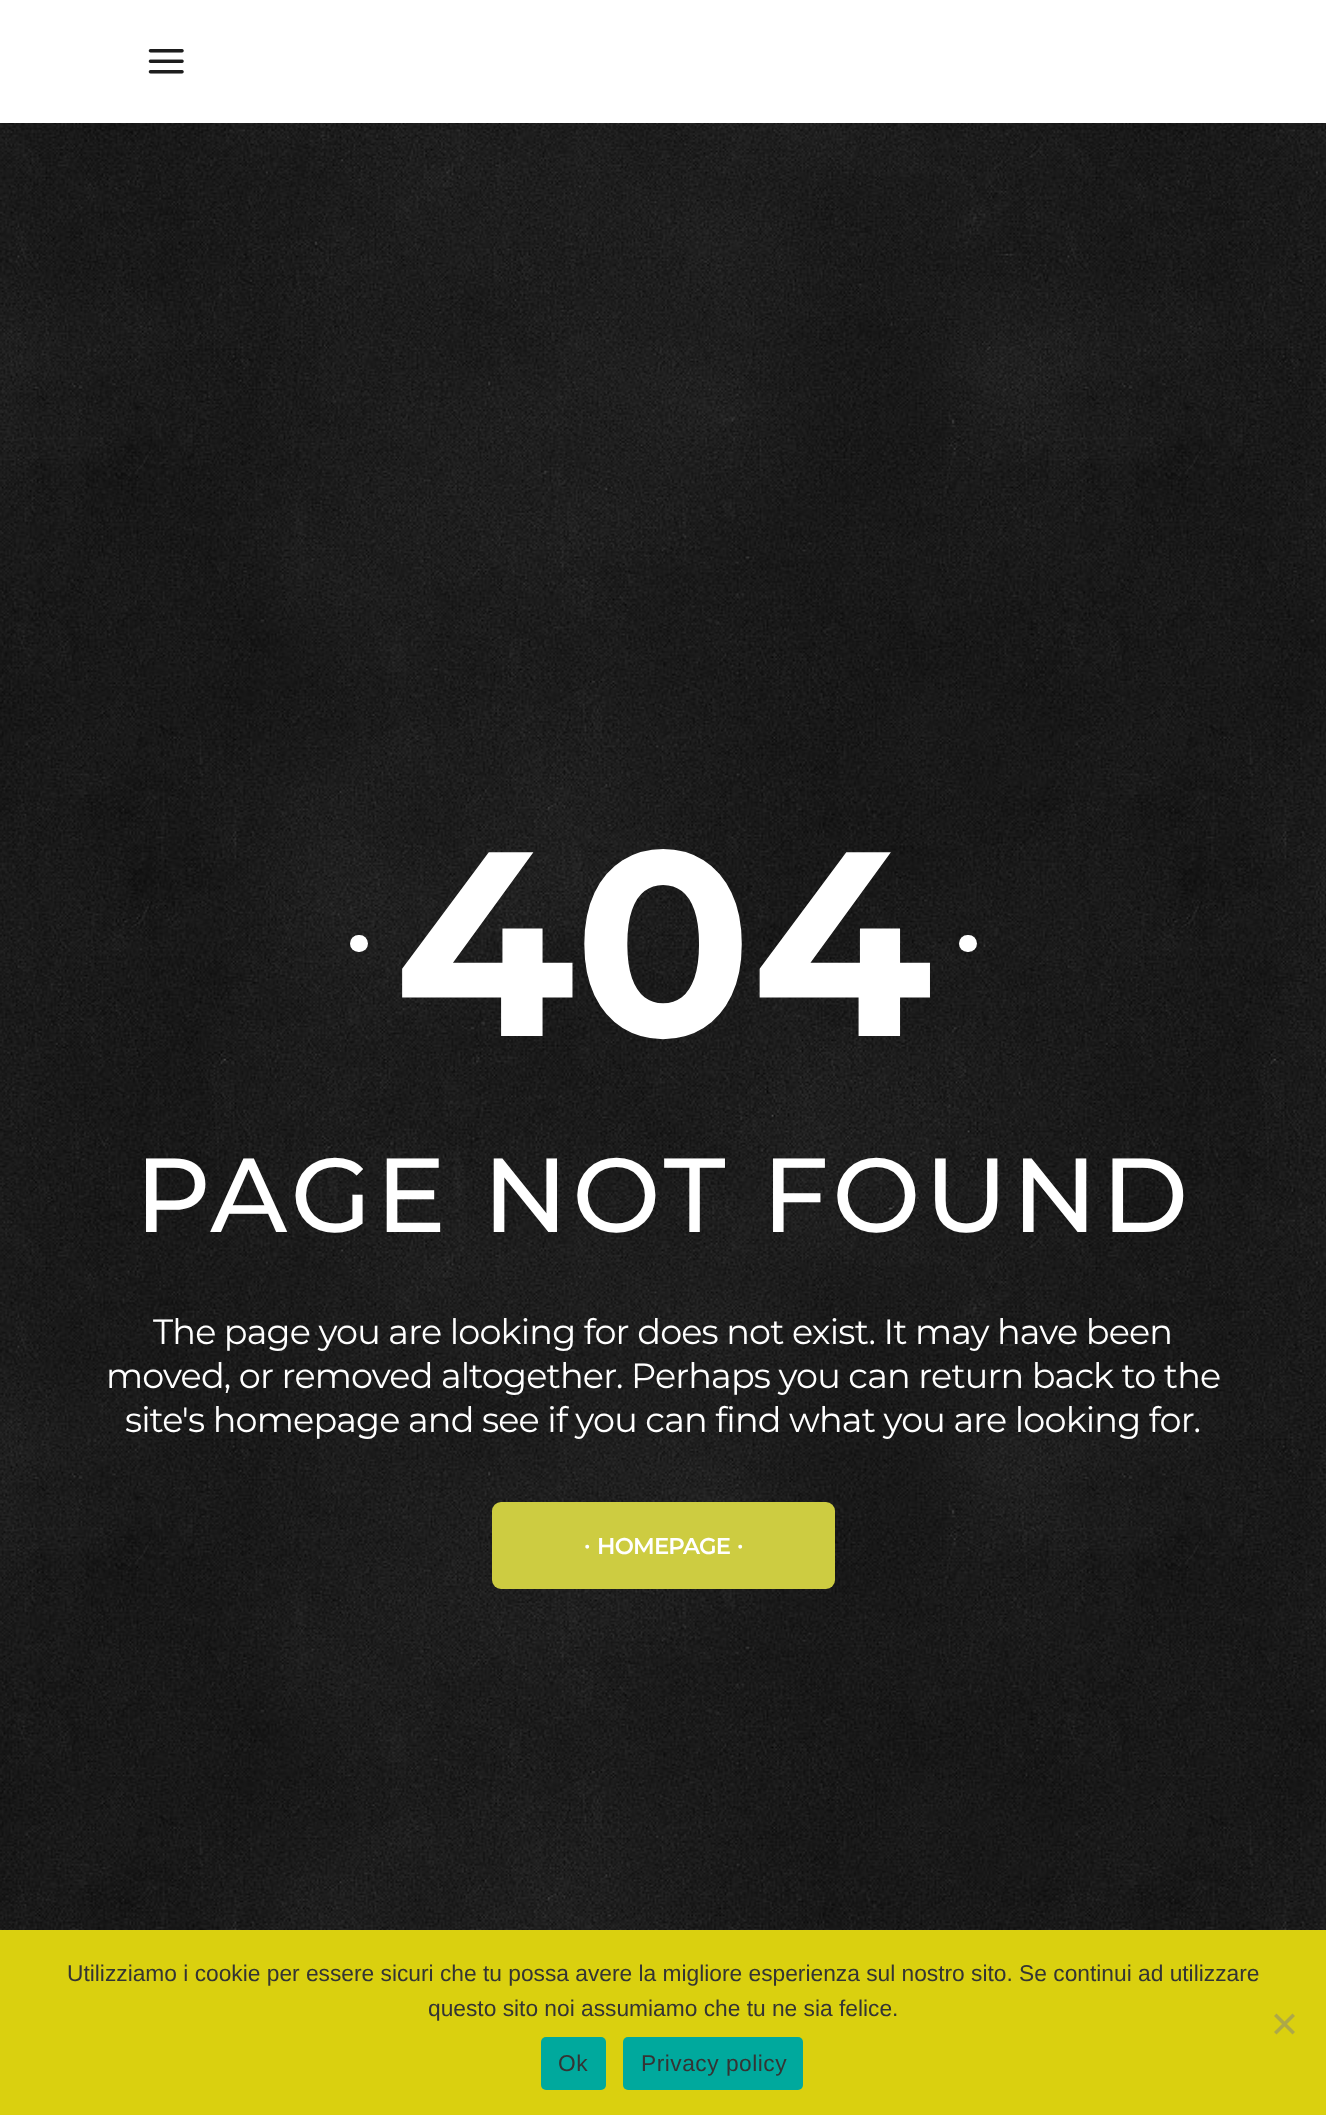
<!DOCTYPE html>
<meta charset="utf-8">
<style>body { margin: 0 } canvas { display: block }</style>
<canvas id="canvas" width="1326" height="2115"></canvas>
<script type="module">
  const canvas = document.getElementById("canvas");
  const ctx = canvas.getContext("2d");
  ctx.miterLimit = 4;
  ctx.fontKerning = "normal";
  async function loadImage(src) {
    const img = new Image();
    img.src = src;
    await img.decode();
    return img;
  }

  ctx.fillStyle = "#ffffff";
  ctx.fillRect(0, 0, 1326, 2115);
  ctx.drawImage(await loadImage("img1.png"), 148, 49, 36, 25);
  ctx.drawImage(await loadImage("img2.png"), 0, 123, 1326, 1807);
  ctx.beginPath();
  ctx.roundRect(350, 935, 18, 17, 8.5);
  ctx.fill();
  ctx.letterSpacing = "-0.8px";
  ctx.font = "bold 262.5px Montserrat";
  ctx.fillText("404", 394, 1036);
  ctx.beginPath();
  ctx.roundRect(959, 935, 18, 17, 8.5);
  ctx.fill();
  ctx.letterSpacing = "4.25px";
  ctx.font = "500 105px Montserrat";
  ctx.fillText("PAGE NOT FOUND", 135, 1232);
  ctx.letterSpacing = "-0.8px";
  ctx.font = "35px Montserrat";
  ctx.fillText("The page you are looking for does not exist. It may have been", 153, 1344);
  ctx.fillText("moved, or removed altogether. Perhaps you can return back to the", 106, 1388);
  ctx.fillText("site's homepage and see if you can find what you are looking for.", 125, 1432);
  ctx.fillStyle = "#cdcc41";
  ctx.beginPath();
  ctx.roundRect(492, 1502, 343, 87, 9);
  ctx.fill();
  ctx.font = "600 22.75px Montserrat";
  ctx.fillStyle = "#ffffff";
  ctx.fillText("·", 584, 1553);
  ctx.fillText("HOMEPAGE", 597, 1554);
  ctx.fillText("·", 737, 1553);
  ctx.fillStyle = "#dad00f";
  ctx.fillRect(0, 1930, 1326, 185);
  ctx.letterSpacing = "0px";
  ctx.font = "22.75px Liberation Sans";
  ctx.fillStyle = "#343434";
  ctx.fillText("Utilizziamo i cookie per essere sicuri che tu possa avere la migliore esperienza sul nostro sito. Se continui ad utilizzare", 67, 1981);
  ctx.fillText("questo sito noi assumiamo che tu ne sia felice.", 428, 2016);
  ctx.fillStyle = "#ada848";
  ctx.beginPath();
  ctx.moveTo(1292.5, 2013.5);
  ctx.lineTo(1295, 2016);
  ctx.lineTo(1276.5, 2034.5);
  ctx.lineTo(1274, 2032);
  ctx.closePath();
  ctx.fill();
  ctx.beginPath();
  ctx.moveTo(1274, 2016);
  ctx.lineTo(1276.5, 2013.5);
  ctx.lineTo(1295, 2032);
  ctx.lineTo(1292.5, 2034.5);
  ctx.closePath();
  ctx.fill();
  ctx.fillStyle = "#00a99d";
  ctx.beginPath();
  ctx.roundRect(541, 2037, 65, 53, 5);
  ctx.fill();
  ctx.letterSpacing = "0.5px";
  ctx.fillStyle = "#343434";
  ctx.fillText("Ok", 558, 2071);
  ctx.fillStyle = "#00a99d";
  ctx.beginPath();
  ctx.roundRect(623, 2037, 180, 53, 5);
  ctx.fill();
  ctx.fillStyle = "#343434";
  ctx.fillText("Privacy policy", 641, 2071);
</script>
